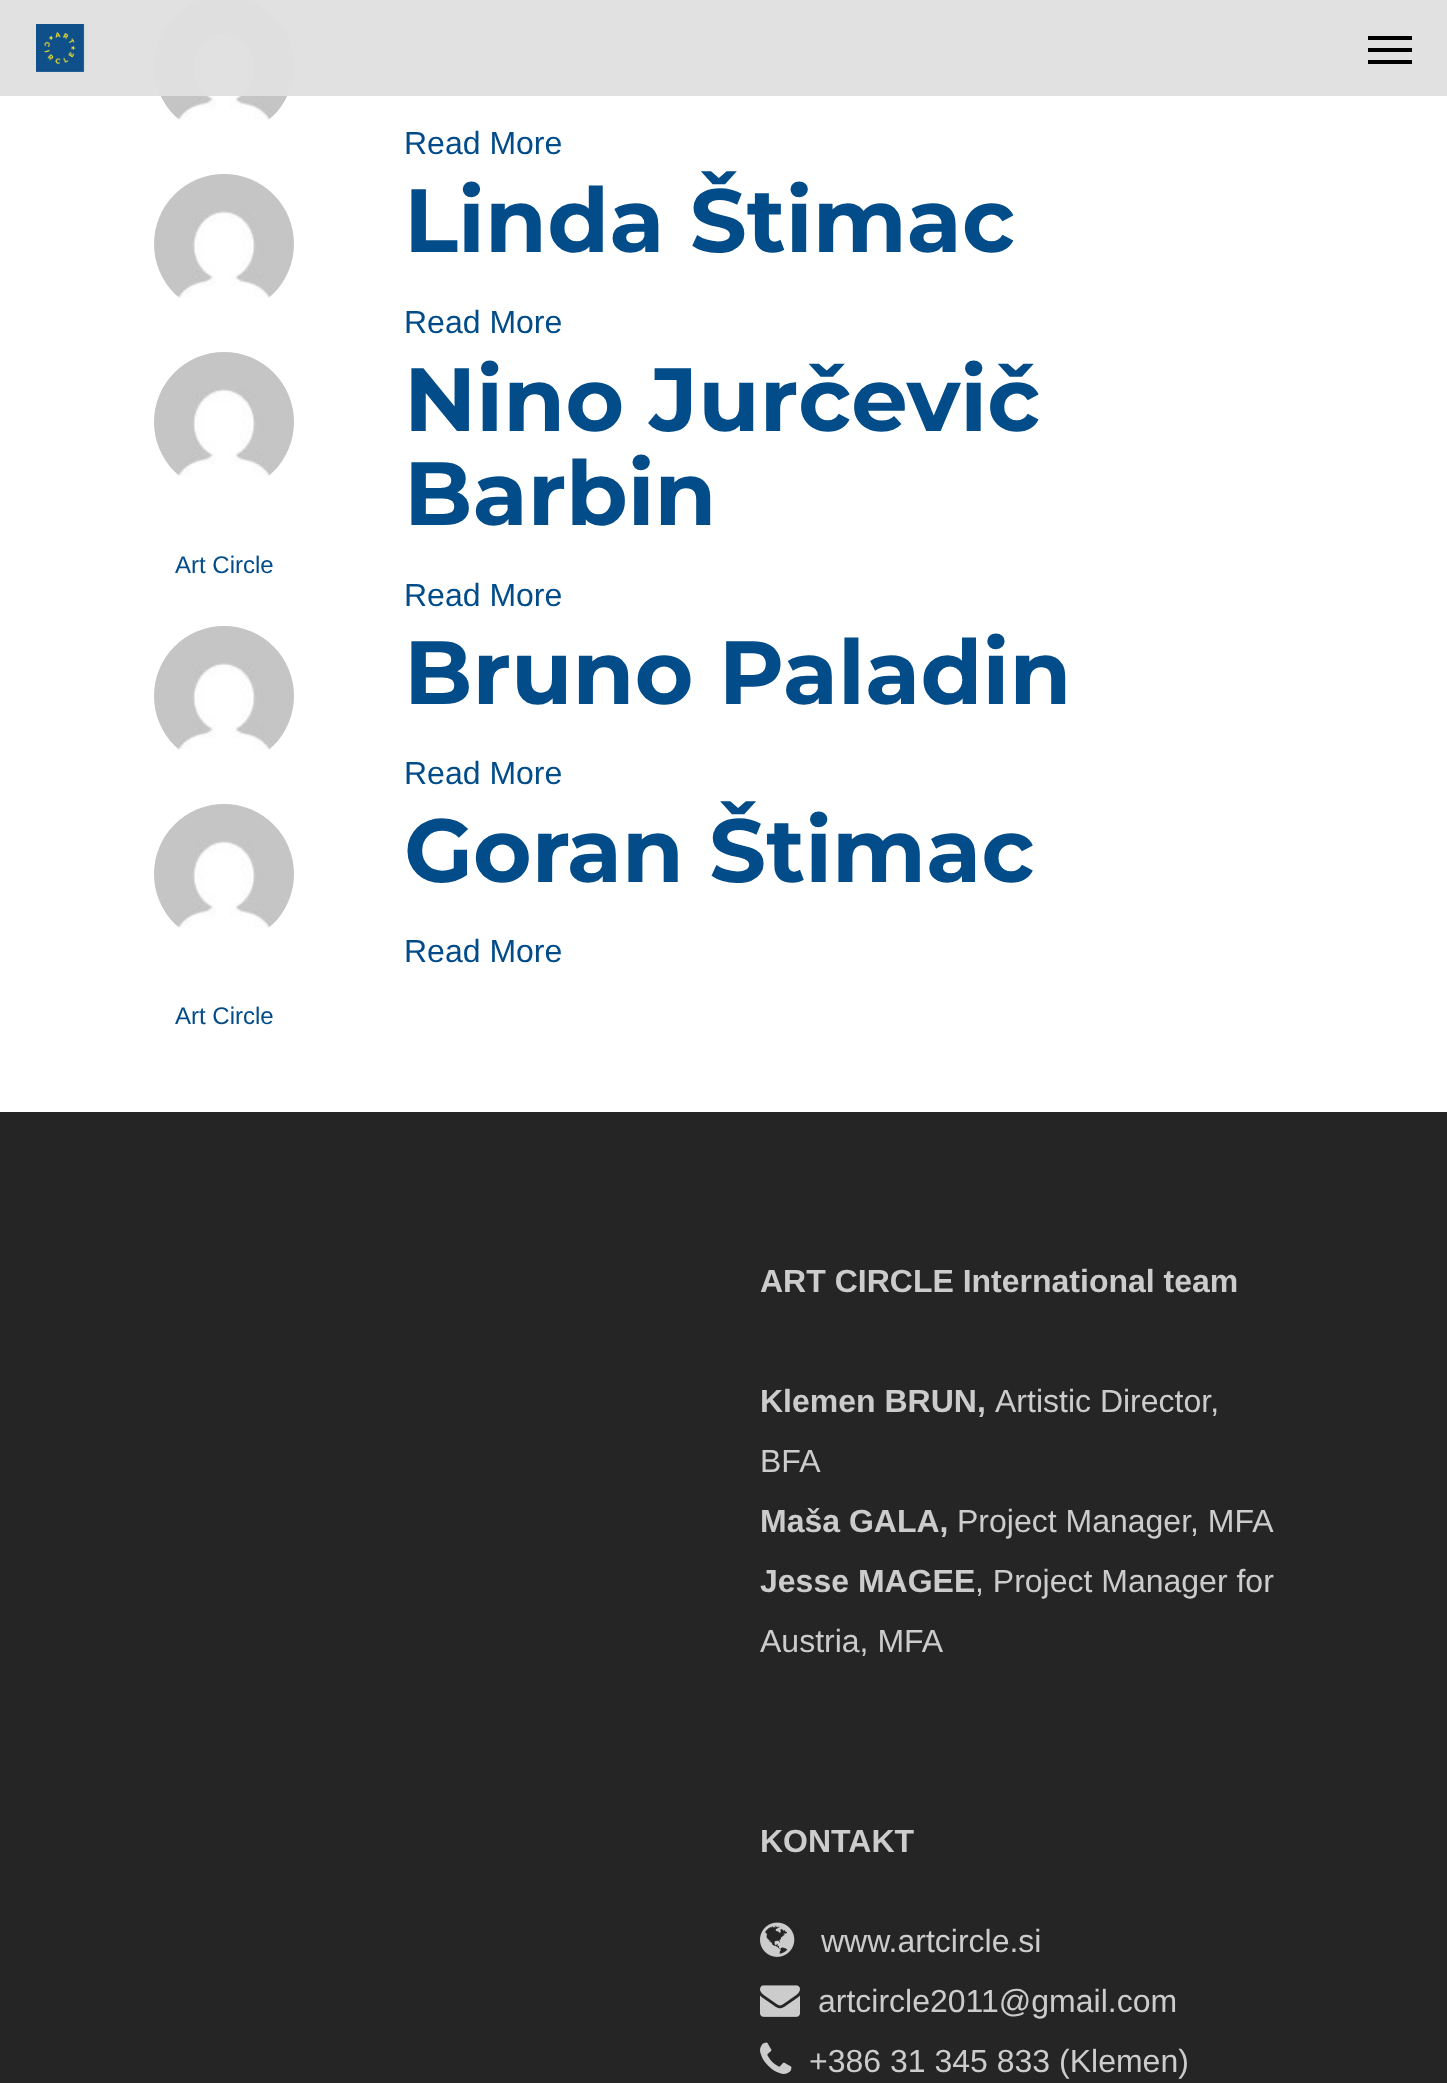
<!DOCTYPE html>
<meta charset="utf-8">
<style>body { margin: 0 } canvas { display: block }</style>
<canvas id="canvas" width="1447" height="2083"></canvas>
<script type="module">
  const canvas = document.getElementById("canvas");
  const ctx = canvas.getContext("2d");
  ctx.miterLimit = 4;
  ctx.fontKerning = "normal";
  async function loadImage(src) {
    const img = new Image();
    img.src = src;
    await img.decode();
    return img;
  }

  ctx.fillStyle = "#ffffff";
  ctx.fillRect(0, 0, 1447, 2083);
  ctx.drawImage(await loadImage("img2.png"), 154, 0, 140, 120);
  ctx.fillStyle = "rgba(224, 224, 224, 0.96)";
  ctx.fillRect(0, 0, 1447, 96);
  ctx.drawImage(await loadImage("img1.png"), 36, 24, 49, 48);
  ctx.fillStyle = "#000000";
  ctx.fillRect(1368, 36, 44, 4);
  ctx.fillRect(1368, 60, 44, 4);
  ctx.fillRect(1368, 48, 44, 4);
  ctx.font = "32px Liberation Sans";
  ctx.fillStyle = "#024c89";
  ctx.fillText("Read More", 404, 154);
  ctx.drawImage(await loadImage("img3.png"), 154, 174, 140, 124);
  ctx.font = "bold 89.5px Montserrat";
  ctx.fillText("Linda Štimac", 404, 252);
  ctx.font = "32px Liberation Sans";
  ctx.fillText("Read More", 404, 333);
  ctx.drawImage(await loadImage("img3.png"), 154, 352, 140, 124);
  ctx.font = "24px Liberation Sans";
  ctx.fillText("Art Circle", 175, 573);
  ctx.font = "bold 89.5px Montserrat";
  ctx.fillText("Nino Jurčevič", 404, 431);
  ctx.fillText("Barbin", 404, 525);
  ctx.font = "32px Liberation Sans";
  ctx.fillText("Read More", 404, 606);
  ctx.drawImage(await loadImage("img3.png"), 154, 626, 140, 124);
  ctx.font = "bold 89.5px Montserrat";
  ctx.fillText("Bruno Paladin", 404, 704);
  ctx.font = "32px Liberation Sans";
  ctx.fillText("Read More", 404, 784);
  ctx.font = "bold 89.5px Montserrat";
  ctx.fillText("Goran Štimac", 404, 882);
  ctx.font = "32px Liberation Sans";
  ctx.fillText("Read More", 404, 962);
  ctx.drawImage(await loadImage("img3.png"), 154, 804, 140, 124);
  ctx.font = "24px Liberation Sans";
  ctx.fillText("Art Circle", 175, 1024);
  ctx.fillStyle = "#252525";
  ctx.fillRect(0, 1112, 1447, 971);
  ctx.font = "bold 32px Liberation Sans";
  ctx.fillStyle = "#cccccc";
  ctx.fillText("ART CIRCLE International team", 760, 1292);
  ctx.fillText("Klemen BRUN,", 760, 1412);
  ctx.font = "32px Liberation Sans";
  ctx.fillText("Artistic Director,", 995, 1412);
  ctx.fillText("BFA", 760, 1472);
  ctx.font = "bold 32px Liberation Sans";
  ctx.fillText("Maša GALA,", 760, 1532);
  ctx.font = "32px Liberation Sans";
  ctx.fillText("Project Manager, MFA", 957, 1532);
  ctx.font = "bold 32px Liberation Sans";
  ctx.fillText("Jesse MAGEE", 760, 1592);
  ctx.font = "32px Liberation Sans";
  ctx.fillText(", Project Manager for", 975, 1592);
  ctx.fillText("Austria, MFA", 760, 1652);
  ctx.font = "bold 32px Liberation Sans";
  ctx.fillText("KONTAKT", 760, 1852);
  ctx.drawImage(await loadImage("img4.png"), 760, 1922, 35, 35);
  ctx.font = "32px Liberation Sans";
  ctx.fillText("www.artcircle.si", 821, 1952);
  ctx.drawImage(await loadImage("img5.png"), 760, 1985, 40, 32);
  ctx.fillText("artcircle2011@gmail.com", 818, 2012);
  ctx.drawImage(await loadImage("img6.png"), 760, 2042, 32, 32);
  ctx.fillText("+386 31 345 833 (Klemen)", 809, 2072);
</script>
